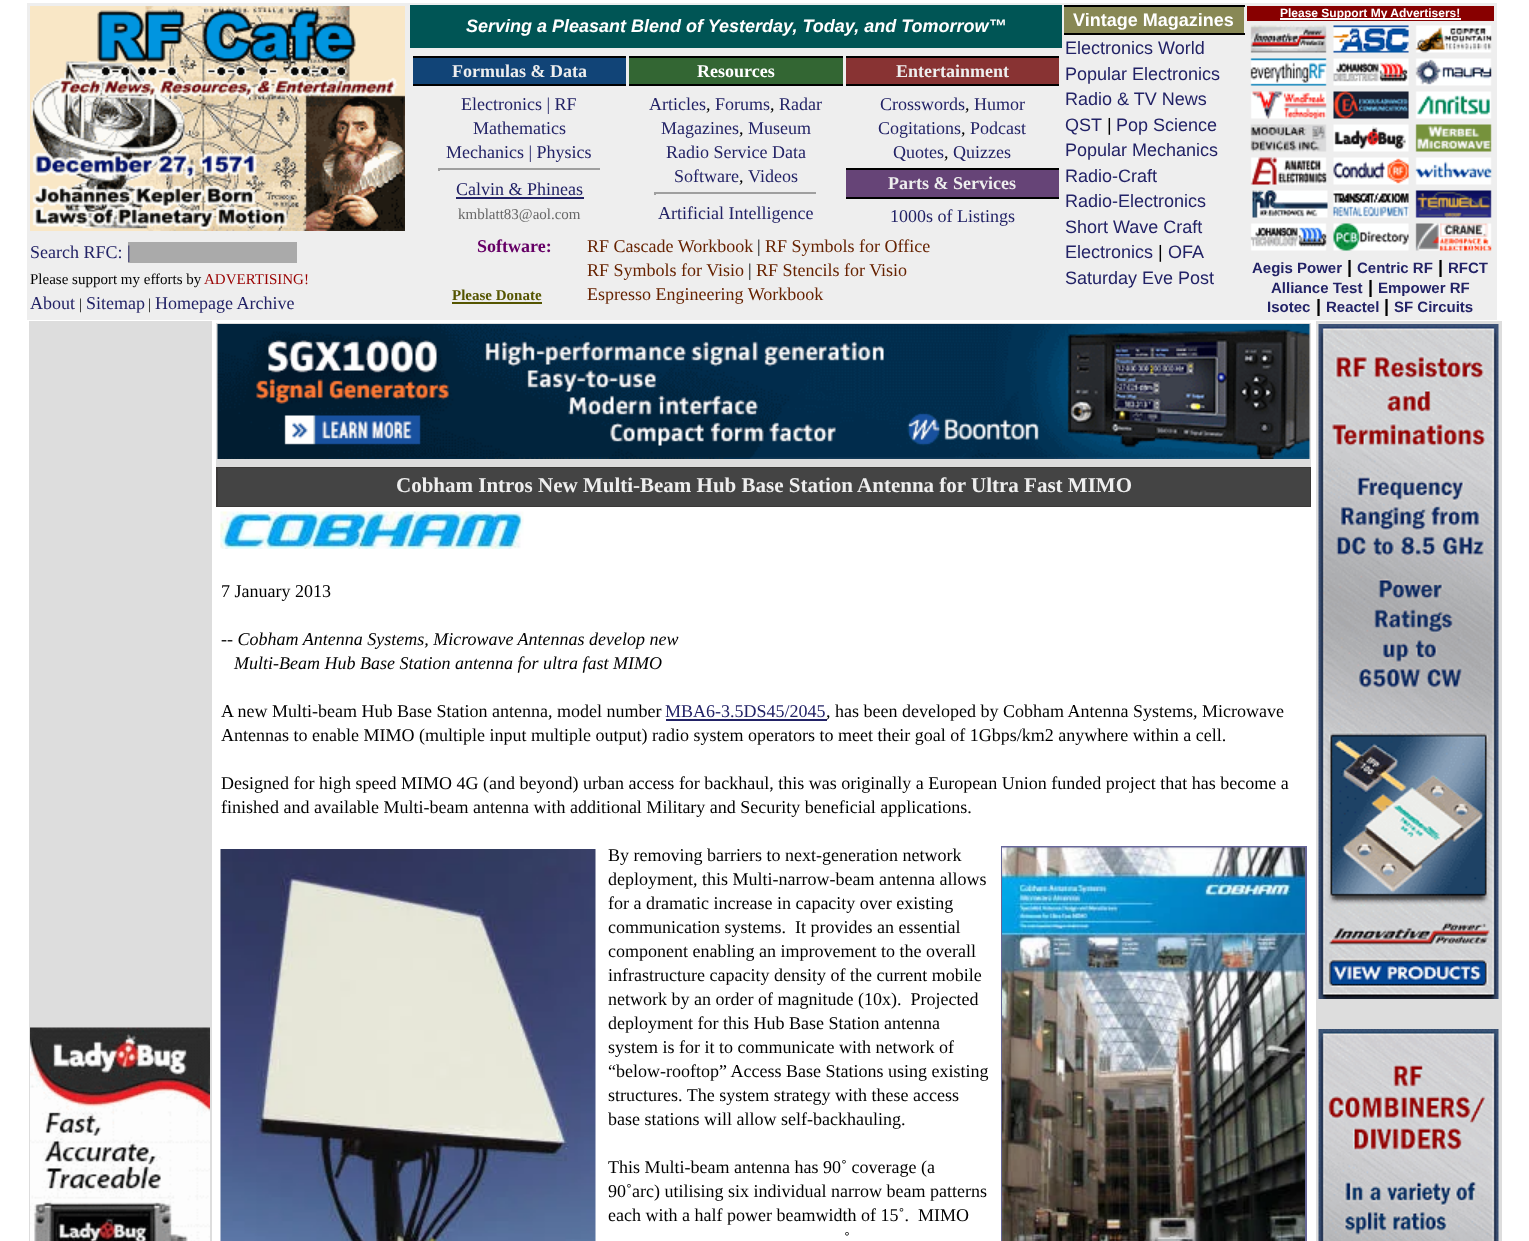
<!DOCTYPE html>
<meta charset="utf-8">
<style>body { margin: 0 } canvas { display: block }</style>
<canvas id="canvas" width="1529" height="1241"></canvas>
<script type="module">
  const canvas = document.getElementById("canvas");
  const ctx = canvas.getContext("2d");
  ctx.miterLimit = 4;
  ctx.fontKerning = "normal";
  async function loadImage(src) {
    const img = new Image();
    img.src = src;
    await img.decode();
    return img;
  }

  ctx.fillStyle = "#ffffff";
  ctx.fillRect(0, 0, 1529, 1241);
  ctx.fillStyle = "#eeeeee";
  ctx.fillRect(27, 3, 1470, 317);
  ctx.drawImage(await loadImage("img1.png"), 30, 6, 375, 225);
  ctx.font = "18px Liberation Serif";
  ctx.fillStyle = "#222266";
  ctx.fillText("Search RFC:", 30, 258);
  ctx.fillStyle = "#aaaaaa";
  ctx.fillRect(128, 242, 169, 21);
  ctx.fillStyle = "#222266";
  ctx.fillText("|", 127, 258);
  ctx.font = "15px Liberation Serif";
  ctx.fillStyle = "#000000";
  ctx.fillText("Please support my efforts by", 30, 284);
  ctx.fillStyle = "#990000";
  ctx.fillText("ADVERTISING!", 204, 284);
  ctx.font = "18px Liberation Serif";
  ctx.fillStyle = "#222266";
  ctx.fillText("About", 30, 309);
  ctx.font = "15px Liberation Serif";
  ctx.fillStyle = "#000000";
  ctx.fillText("|", 79, 309);
  ctx.font = "18px Liberation Serif";
  ctx.fillStyle = "#222266";
  ctx.fillText("Sitemap", 86, 309);
  ctx.font = "15px Liberation Serif";
  ctx.fillStyle = "#000000";
  ctx.fillText("|", 148, 309);
  ctx.font = "18px Liberation Serif";
  ctx.fillStyle = "#222266";
  ctx.fillText("Homepage Archive", 155, 309);
  ctx.fillStyle = "#005555";
  ctx.fillRect(410, 5, 652, 43);
  ctx.font = "italic bold 18px Liberation Sans";
  ctx.fillStyle = "#ffffff";
  ctx.fillText("Serving a Pleasant Blend of Yesterday, Today, and Tomorrow™", 466, 32);
  ctx.fillStyle = "#888855";
  ctx.fillRect(1064, 7, 180, 26);
  ctx.fillStyle = "#000000";
  ctx.fillRect(1064, 5, 181, 2);
  ctx.fillRect(1064, 33, 181, 2);
  ctx.font = "bold 18px Liberation Sans";
  ctx.fillStyle = "#ffffff";
  ctx.fillText("Vintage Magazines", 1073, 26);
  ctx.font = "18px Liberation Sans";
  ctx.fillStyle = "#222266";
  ctx.fillText("Electronics World", 1065, 54);
  ctx.fillText("Popular Electronics", 1065, 80);
  ctx.fillText("Radio & TV News", 1065, 105);
  ctx.fillText("QST", 1065, 131);
  ctx.fillStyle = "#000000";
  ctx.fillText("|", 1107, 131);
  ctx.fillStyle = "#222266";
  ctx.fillText("Pop Science", 1116, 131);
  ctx.fillText("Popular Mechanics", 1065, 156);
  ctx.fillText("Radio-Craft", 1065, 182);
  ctx.fillText("Radio-Electronics", 1065, 207);
  ctx.fillText("Short Wave Craft", 1065, 233);
  ctx.fillText("Electronics", 1065, 258);
  ctx.fillStyle = "#000000";
  ctx.fillText("|", 1158, 258);
  ctx.fillStyle = "#222266";
  ctx.fillText("OFA", 1168, 258);
  ctx.fillText("Saturday Eve Post", 1065, 284);
  ctx.fillStyle = "#880000";
  ctx.fillRect(1247, 6, 247, 15);
  ctx.fillStyle = "#ffffff";
  ctx.fillRect(1280, 18, 181, 2);
  ctx.font = "bold 12px Liberation Sans";
  ctx.fillText("Please Support My Advertisers!", 1280, 17);
  ctx.drawImage(await loadImage("img2.png"), 1250, 25, 242, 226);
  ctx.font = "bold 15px Liberation Sans";
  ctx.fillStyle = "#222266";
  ctx.fillText("Aegis Power", 1252, 273);
  ctx.font = "bold 18px Liberation Sans";
  ctx.fillStyle = "#000000";
  ctx.fillText("|", 1347, 273);
  ctx.font = "bold 15px Liberation Sans";
  ctx.fillStyle = "#222266";
  ctx.fillText("Centric RF", 1357, 273);
  ctx.font = "bold 18px Liberation Sans";
  ctx.fillStyle = "#000000";
  ctx.fillText("|", 1438, 273);
  ctx.font = "bold 15px Liberation Sans";
  ctx.fillStyle = "#222266";
  ctx.fillText("RFCT", 1448, 273);
  ctx.fillText("Alliance Test", 1271, 293);
  ctx.font = "bold 18px Liberation Sans";
  ctx.fillStyle = "#000000";
  ctx.fillText("|", 1368, 293);
  ctx.font = "bold 15px Liberation Sans";
  ctx.fillStyle = "#222266";
  ctx.fillText("Empower RF", 1378, 293);
  ctx.fillText("Isotec", 1267, 312);
  ctx.font = "bold 18px Liberation Sans";
  ctx.fillStyle = "#000000";
  ctx.fillText("|", 1316, 312);
  ctx.font = "bold 15px Liberation Sans";
  ctx.fillStyle = "#222266";
  ctx.fillText("Reactel", 1326, 312);
  ctx.font = "bold 18px Liberation Sans";
  ctx.fillStyle = "#000000";
  ctx.fillText("|", 1384, 312);
  ctx.font = "bold 15px Liberation Sans";
  ctx.fillStyle = "#222266";
  ctx.fillText("SF Circuits", 1394, 312);
  ctx.fillStyle = "#114477";
  ctx.fillRect(413, 58, 213, 26);
  ctx.fillStyle = "#000000";
  ctx.fillRect(413, 56, 213, 2);
  ctx.fillRect(413, 84, 213, 2);
  ctx.font = "bold 18px Liberation Serif";
  ctx.fillStyle = "#eeeeee";
  ctx.fillText("Formulas & Data", 452, 77);
  ctx.font = "18px Liberation Serif";
  ctx.fillStyle = "#222266";
  ctx.fillText("Electronics | RF", 461, 110);
  ctx.fillText("Mathematics", 473, 134);
  ctx.fillText("Mechanics | Physics", 446, 158);
  ctx.fillStyle = "#9f9f9f";
  ctx.fillRect(438, 168, 164, 2);
  ctx.fillStyle = "#eeeeee";
  ctx.fillRect(600, 168, 2, 3);
  ctx.fillStyle = "#9f9f9f";
  ctx.fillRect(438, 168, 2, 3);
  ctx.fillStyle = "#222266";
  ctx.fillText("Calvin & Phineas", 456, 195);
  ctx.fillRect(456, 197, 128, 2);
  ctx.font = "15px Liberation Serif";
  ctx.fillStyle = "#666666";
  ctx.fillText("kmblatt83@aol.com", 458, 219);
  ctx.fillStyle = "#336633";
  ctx.fillRect(629, 58, 214, 26);
  ctx.fillStyle = "#000000";
  ctx.fillRect(629, 56, 214, 2);
  ctx.fillRect(629, 84, 214, 2);
  ctx.font = "bold 18px Liberation Serif";
  ctx.fillStyle = "#ffffff";
  ctx.fillText("Resources", 697, 77);
  ctx.font = "18px Liberation Serif";
  ctx.fillStyle = "#222266";
  ctx.fillText("Articles", 649, 110);
  ctx.fillStyle = "#000000";
  ctx.fillText(",", 706, 110);
  ctx.fillStyle = "#222266";
  ctx.fillText("Forums", 715, 110);
  ctx.fillStyle = "#000000";
  ctx.fillText(",", 770, 110);
  ctx.fillStyle = "#222266";
  ctx.fillText("Radar", 779, 110);
  ctx.fillText("Magazines", 661, 134);
  ctx.fillStyle = "#000000";
  ctx.fillText(",", 739, 134);
  ctx.fillStyle = "#222266";
  ctx.fillText("Museum", 748, 134);
  ctx.fillText("Radio Service Data", 666, 158);
  ctx.fillText("Software", 674, 182);
  ctx.fillStyle = "#000000";
  ctx.fillText(",", 739, 182);
  ctx.fillStyle = "#222266";
  ctx.fillText("Videos", 748, 182);
  ctx.fillStyle = "#9f9f9f";
  ctx.fillRect(654, 192, 164, 2);
  ctx.fillStyle = "#eeeeee";
  ctx.fillRect(816, 192, 2, 3);
  ctx.fillStyle = "#9f9f9f";
  ctx.fillRect(654, 192, 2, 3);
  ctx.fillStyle = "#222266";
  ctx.fillText("Artificial Intelligence", 658, 219);
  ctx.fillStyle = "#883333";
  ctx.fillRect(846, 58, 213, 26);
  ctx.fillStyle = "#000000";
  ctx.fillRect(846, 56, 213, 2);
  ctx.fillRect(846, 84, 213, 2);
  ctx.font = "bold 18px Liberation Serif";
  ctx.fillStyle = "#eeeeee";
  ctx.fillText("Entertainment", 896, 77);
  ctx.font = "18px Liberation Serif";
  ctx.fillStyle = "#222266";
  ctx.fillText("Crosswords", 880, 110);
  ctx.fillStyle = "#000000";
  ctx.fillText(",", 965, 110);
  ctx.fillStyle = "#222266";
  ctx.fillText("Humor", 974, 110);
  ctx.fillText("Cogitations", 878, 134);
  ctx.fillStyle = "#000000";
  ctx.fillText(",", 961, 134);
  ctx.fillStyle = "#222266";
  ctx.fillText("Podcast", 970, 134);
  ctx.fillText("Quotes", 893, 158);
  ctx.fillStyle = "#000000";
  ctx.fillText(",", 944, 158);
  ctx.fillStyle = "#222266";
  ctx.fillText("Quizzes", 953, 158);
  ctx.fillStyle = "#664477";
  ctx.fillRect(846, 170, 213, 27);
  ctx.fillStyle = "#000000";
  ctx.fillRect(846, 168, 213, 2);
  ctx.fillRect(846, 197, 213, 2);
  ctx.font = "bold 18px Liberation Serif";
  ctx.fillStyle = "#eeeeee";
  ctx.fillText("Parts & Services", 888, 189);
  ctx.font = "18px Liberation Serif";
  ctx.fillStyle = "#222266";
  ctx.fillText("1000s of Listings", 890, 222);
  ctx.font = "bold 18px Liberation Serif";
  ctx.fillStyle = "#660066";
  ctx.fillText("Software:", 477, 252);
  ctx.font = "bold 15px Liberation Serif";
  ctx.fillStyle = "#555500";
  ctx.fillText("Please Donate", 452, 300);
  ctx.fillRect(452, 302, 90, 2);
  ctx.font = "18px Liberation Serif";
  ctx.fillStyle = "#662200";
  ctx.fillText("RF Cascade Workbook", 587, 252);
  ctx.fillStyle = "#000000";
  ctx.fillText("|", 757, 252);
  ctx.fillStyle = "#662200";
  ctx.fillText("RF Symbols for Office", 765, 252);
  ctx.fillText("RF Symbols for Visio", 587, 276);
  ctx.fillStyle = "#000000";
  ctx.fillText("|", 748, 276);
  ctx.fillStyle = "#662200";
  ctx.fillText("RF Stencils for Visio", 756, 276);
  ctx.fillText("Espresso Engineering Workbook", 587, 300);
  ctx.fillStyle = "#dddddd";
  ctx.fillRect(29, 321, 183, 920);
  ctx.drawImage(await loadImage("img3.png"), 30, 1027, 180, 214);
  ctx.fillRect(216, 323, 1095, 144);
  ctx.drawImage(await loadImage("img4.png"), 217, 324, 1093, 135);
  ctx.fillStyle = "#3b3938";
  ctx.fillRect(216, 467, 1095, 40);
  ctx.fillStyle = "#444444";
  ctx.fillRect(218, 468, 1092, 38);
  ctx.font = "bold 21px Liberation Serif";
  ctx.fillStyle = "#eeeeee";
  ctx.fillText("Cobham Intros New Multi-Beam Hub Base Station Antenna for Ultra Fast MIMO", 396, 492);
  ctx.drawImage(await loadImage("img5.png"), 220, 511, 304, 38);
  ctx.font = "18px Liberation Serif";
  ctx.fillStyle = "#000000";
  ctx.fillText("7 January 2013", 221, 597);
  ctx.font = "italic 18px Liberation Serif";
  ctx.fillText("-- Cobham Antenna Systems, Microwave Antennas develop new", 221, 645);
  ctx.fillText("Multi-Beam Hub Base Station antenna for ultra fast MIMO", 234, 669);
  ctx.font = "18px Liberation Serif";
  ctx.fillText("A new Multi-beam Hub Base Station antenna, model number", 221, 717);
  ctx.fillStyle = "#222266";
  ctx.fillText("MBA6-3.5DS45/2045", 665, 717);
  ctx.fillRect(666, 719, 161, 2);
  ctx.fillStyle = "#000000";
  ctx.fillText(", has been developed by Cobham Antenna Systems, Microwave", 826, 717);
  ctx.fillText("Antennas to enable MIMO (multiple input multiple output) radio system operators to meet their goal of 1Gbps/km2 anywhere within a cell.", 221, 741);
  ctx.fillText("Designed for high speed MIMO 4G (and beyond) urban access for backhaul, this was originally a European Union funded project that has become a", 221, 789);
  ctx.fillText("finished and available Multi-beam antenna with additional Military and Security beneficial applications.", 221, 813);
  ctx.drawImage(await loadImage("img6.png"), 220, 849, 376, 392);
  ctx.fillText("By removing barriers to next-generation network", 608, 861);
  ctx.strokeStyle = "#666699";
  ctx.lineWidth = 2;
  ctx.strokeRect(1002, 847, 304, 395);
  ctx.drawImage(await loadImage("img7.png"), 1002, 847, 303, 394);
  ctx.fillText("deployment, this Multi-narrow-beam antenna allows", 608, 885);
  ctx.fillText("for a dramatic increase in capacity over existing", 608, 909);
  ctx.fillText("communication systems.  It provides an essential", 608, 933);
  ctx.fillText("component enabling an improvement to the overall", 608, 957);
  ctx.fillText("infrastructure capacity density of the current mobile", 608, 981);
  ctx.fillText("network by an order of magnitude (10x).  Projected", 608, 1005);
  ctx.fillText("deployment for this Hub Base Station antenna", 608, 1029);
  ctx.fillText("system is for it to communicate with network of", 608, 1053);
  ctx.fillText("“below-rooftop” Access Base Stations using existing", 608, 1077);
  ctx.fillText("structures. The system strategy with these access", 608, 1101);
  ctx.fillText("base stations will allow self-backhauling.", 608, 1125);
  ctx.fillText("This Multi-beam antenna has 90˚ coverage (a", 608, 1173);
  ctx.fillText("90˚arc) utilising six individual narrow beam patterns", 608, 1197);
  ctx.fillText("each with a half power beamwidth of 15˚.  MIMO", 608, 1221);
  ctx.fillText("˚", 844, 1245);
  ctx.fillStyle = "#dddddd";
  ctx.fillRect(1316, 321, 186, 920);
  ctx.drawImage(await loadImage("img8.png"), 1318, 324, 181, 675);
  ctx.drawImage(await loadImage("img9.png"), 1318, 1029, 181, 212);
</script>
